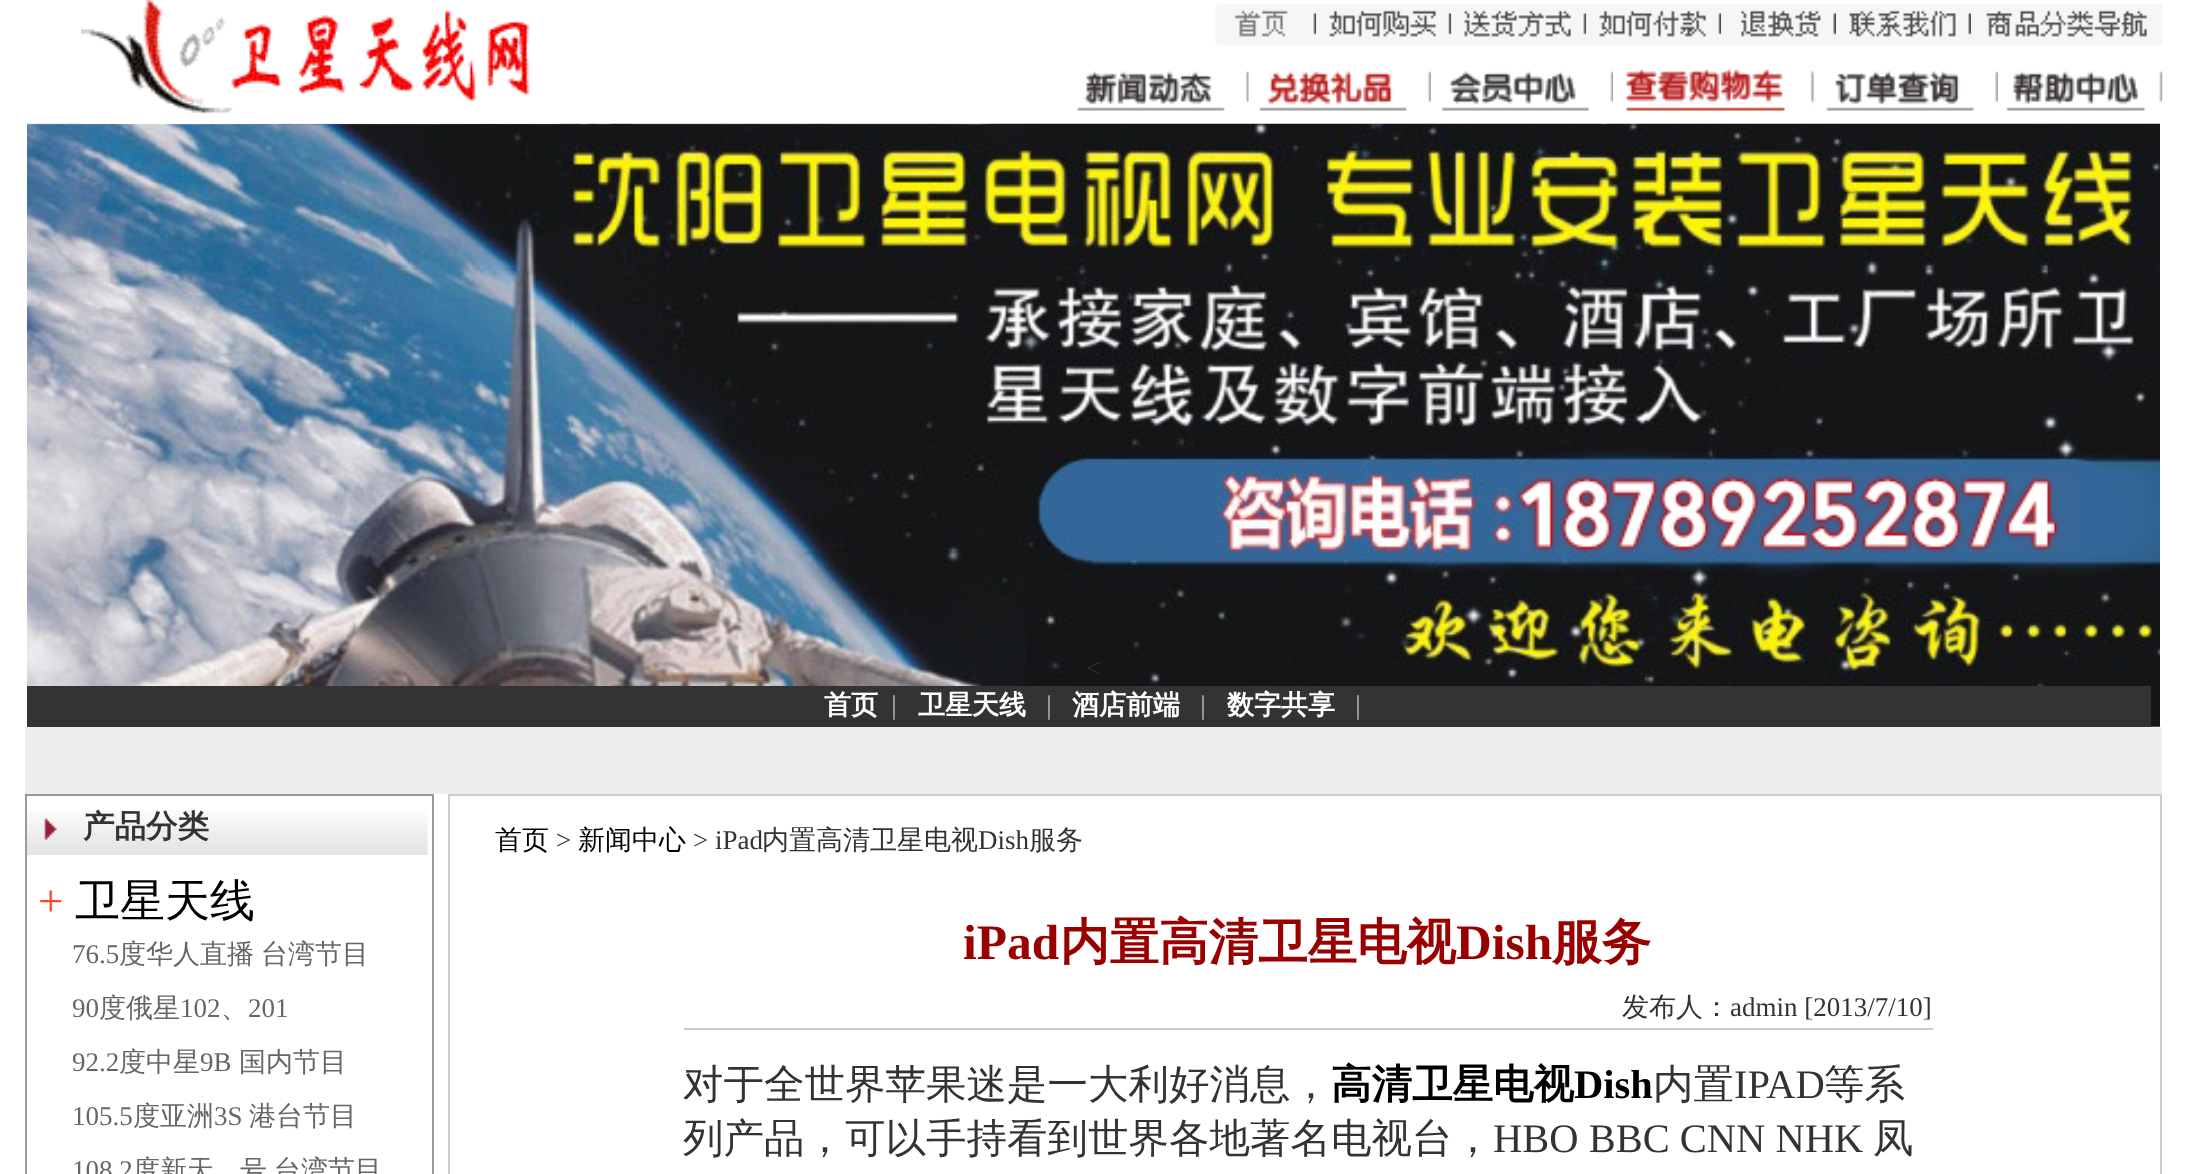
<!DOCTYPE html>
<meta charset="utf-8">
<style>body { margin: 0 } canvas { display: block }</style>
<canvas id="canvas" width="2187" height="1174"></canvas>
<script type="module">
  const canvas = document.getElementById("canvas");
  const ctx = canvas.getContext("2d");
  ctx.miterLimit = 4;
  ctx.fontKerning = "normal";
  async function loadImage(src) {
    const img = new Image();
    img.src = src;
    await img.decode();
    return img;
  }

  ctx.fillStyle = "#ffffff";
  ctx.fillRect(0, 0, 2187, 1174);
  ctx.drawImage(await loadImage("img15.png"), 27, 123, 2133, 604);
  ctx.drawImage(await loadImage("img1.png"), 81, 0, 480, 124);
  ctx.drawImage(await loadImage("img2.png"), 1215, 4, 102, 41);
  ctx.drawImage(await loadImage("img3.png"), 1316, 4, 136, 41);
  ctx.drawImage(await loadImage("img4.png"), 1451, 4, 136, 41);
  ctx.drawImage(await loadImage("img5.png"), 1586, 4, 136, 41);
  ctx.drawImage(await loadImage("img6.png"), 1721, 4, 115, 41);
  ctx.drawImage(await loadImage("img7.png"), 1836, 4, 135, 41);
  ctx.drawImage(await loadImage("img8.png"), 1971, 4, 191, 41);
  ctx.drawImage(await loadImage("img9.png"), 1077, 71, 172, 40);
  ctx.drawImage(await loadImage("img10.png"), 1248, 71, 183, 40);
  ctx.drawImage(await loadImage("img11.png"), 1441, 71, 173, 40);
  ctx.drawImage(await loadImage("img12.png"), 1613, 64, 203, 48);
  ctx.drawImage(await loadImage("img13.png"), 1826, 71, 172, 40);
  ctx.drawImage(await loadImage("img14.png"), 2006, 71, 157, 40);
  ctx.font = "27px Liberation Serif";
  ctx.fillStyle = "#333333";
  ctx.fillText("<", 1086, 677);
  ctx.fillRect(27, 686, 2124, 41);
  ctx.font = "bold 27px WenQuanYi Zen Hei";
  ctx.fillStyle = "#ffffff";
  ctx.fillText("首页", 824, 714);
  ctx.font = "bold 27px Liberation Serif";
  ctx.fillStyle = "#999999";
  ctx.fillText("|", 891, 714);
  ctx.font = "bold 27px WenQuanYi Zen Hei";
  ctx.fillStyle = "#ffffff";
  ctx.fillText("卫星天线", 918, 714);
  ctx.font = "bold 27px Liberation Serif";
  ctx.fillStyle = "#999999";
  ctx.fillText("|", 1046, 714);
  ctx.font = "bold 27px WenQuanYi Zen Hei";
  ctx.fillStyle = "#ffffff";
  ctx.fillText("酒店前端", 1072, 714);
  ctx.font = "bold 27px Liberation Serif";
  ctx.fillStyle = "#999999";
  ctx.fillText("|", 1200, 714);
  ctx.font = "bold 27px WenQuanYi Zen Hei";
  ctx.fillStyle = "#ffffff";
  ctx.fillText("数字共享", 1227, 714);
  ctx.font = "bold 27px Liberation Serif";
  ctx.fillStyle = "#999999";
  ctx.fillText("|", 1355, 714);
  ctx.fillStyle = "#eeeeee";
  ctx.fillRect(25, 727, 2137, 67);
  ctx.strokeStyle = "#999999";
  ctx.lineWidth = 2;
  ctx.strokeRect(26, 795, 407, 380);
  ctx.drawImage(await loadImage("img16.png"), 27, 810, 401, 45);
  ctx.font = "bold 31.5px WenQuanYi Zen Hei";
  ctx.fillStyle = "#333333";
  ctx.fillText("产品分类", 83, 837);
  ctx.font = "45px Liberation Serif";
  ctx.fillStyle = "#fd4828";
  ctx.fillText("+", 38, 916);
  ctx.font = "500 45px WenQuanYi Zen Hei";
  ctx.fillStyle = "#000000";
  ctx.fillText("卫星天线", 75, 916);
  ctx.font = "27px Liberation Serif";
  ctx.fillStyle = "#666666";
  ctx.fillText("76.5", 72, 963);
  ctx.wordSpacing = "-1px";
  ctx.font = "500 27px WenQuanYi Zen Hei";
  ctx.fillText("度华人直播 台湾节目", 119, 963);
  ctx.wordSpacing = "0px";
  ctx.font = "27px Liberation Serif";
  ctx.fillText("90", 72, 1017);
  ctx.font = "500 27px WenQuanYi Zen Hei";
  ctx.fillText("度俄星", 99, 1017);
  ctx.font = "27px Liberation Serif";
  ctx.fillText("102", 180, 1017);
  ctx.font = "500 27px WenQuanYi Zen Hei";
  ctx.fillText("、", 221, 1017);
  ctx.font = "27px Liberation Serif";
  ctx.fillText("201", 248, 1017);
  ctx.fillText("92.2", 72, 1071);
  ctx.font = "500 27px WenQuanYi Zen Hei";
  ctx.fillText("度中星", 119, 1071);
  ctx.font = "27px Liberation Serif";
  ctx.fillText("9B", 200, 1071);
  ctx.font = "500 27px WenQuanYi Zen Hei";
  ctx.fillText("国内节目", 239, 1071);
  ctx.font = "27px Liberation Serif";
  ctx.fillText("105.5", 72, 1125);
  ctx.font = "500 27px WenQuanYi Zen Hei";
  ctx.fillText("度亚洲", 133, 1125);
  ctx.font = "27px Liberation Serif";
  ctx.fillText("3S", 214, 1125);
  ctx.font = "500 27px WenQuanYi Zen Hei";
  ctx.fillText("港台节目", 249, 1125);
  ctx.font = "27px Liberation Serif";
  ctx.fillText("108.2", 72, 1179);
  ctx.font = "500 27px WenQuanYi Zen Hei";
  ctx.fillText("度新天", 133, 1179);
  ctx.wordSpacing = "-1px";
  ctx.fillText("号 台湾节目", 240, 1179);
  ctx.strokeStyle = "#cccccc";
  ctx.strokeRect(449, 795, 1712, 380);
  ctx.wordSpacing = "0px";
  ctx.fillStyle = "#000000";
  ctx.fillText("首页", 495, 849);
  ctx.font = "27px Liberation Serif";
  ctx.fillStyle = "#333333";
  ctx.fillText(">", 556, 849);
  ctx.font = "500 27px WenQuanYi Zen Hei";
  ctx.fillStyle = "#000000";
  ctx.fillText("新闻中心", 578, 849);
  ctx.font = "27px Liberation Serif";
  ctx.fillStyle = "#333333";
  ctx.fillText("> iPad", 693, 849);
  ctx.font = "500 27px WenQuanYi Zen Hei";
  ctx.fillText("内置高清卫星电视", 762, 849);
  ctx.font = "27px Liberation Serif";
  ctx.fillText("Dish", 978, 849);
  ctx.font = "500 27px WenQuanYi Zen Hei";
  ctx.fillText("服务", 1029, 849);
  ctx.font = "bold 49.5px Liberation Serif";
  ctx.fillStyle = "#990000";
  ctx.fillText("iPad", 963, 959);
  ctx.font = "bold 49.5px WenQuanYi Zen Hei";
  ctx.fillText("内置高清卫星电视", 1060, 959);
  ctx.font = "bold 49.5px Liberation Serif";
  ctx.fillText("Dish", 1456, 959);
  ctx.font = "bold 49.5px WenQuanYi Zen Hei";
  ctx.fillText("服务", 1552, 959);
  ctx.fillStyle = "#cccccc";
  ctx.fillRect(684, 1028, 1249, 2);
  ctx.font = "500 27px WenQuanYi Zen Hei";
  ctx.fillStyle = "#333333";
  ctx.fillText("发布人：", 1622, 1016);
  ctx.font = "27px Liberation Serif";
  ctx.fillText("admin [2013/7/10]", 1730, 1016);
  ctx.font = "500 40.5px WenQuanYi Zen Hei";
  ctx.fillText("对于全世界苹果迷是一大利好消息，", 683, 1098);
  ctx.font = "bold 40.5px WenQuanYi Zen Hei";
  ctx.fillStyle = "#000000";
  ctx.fillText("高清卫星电视", 1331, 1098);
  ctx.font = "bold 40.5px Liberation Serif";
  ctx.fillText("Dish", 1574, 1098);
  ctx.font = "500 40.5px WenQuanYi Zen Hei";
  ctx.fillStyle = "#333333";
  ctx.fillText("内置", 1653, 1098);
  ctx.font = "40.5px Liberation Serif";
  ctx.fillText("IPAD", 1734, 1098);
  ctx.font = "500 40.5px WenQuanYi Zen Hei";
  ctx.fillText("等系", 1824, 1098);
  ctx.fillText("列产品，可以手持看到世界各地著名电视台，", 683, 1152);
  ctx.font = "40.5px Liberation Serif";
  ctx.fillText("HBO BBC CNN NHK", 1493, 1152);
  ctx.font = "500 40.5px WenQuanYi Zen Hei";
  ctx.fillText("凤", 1873, 1152);
</script>
